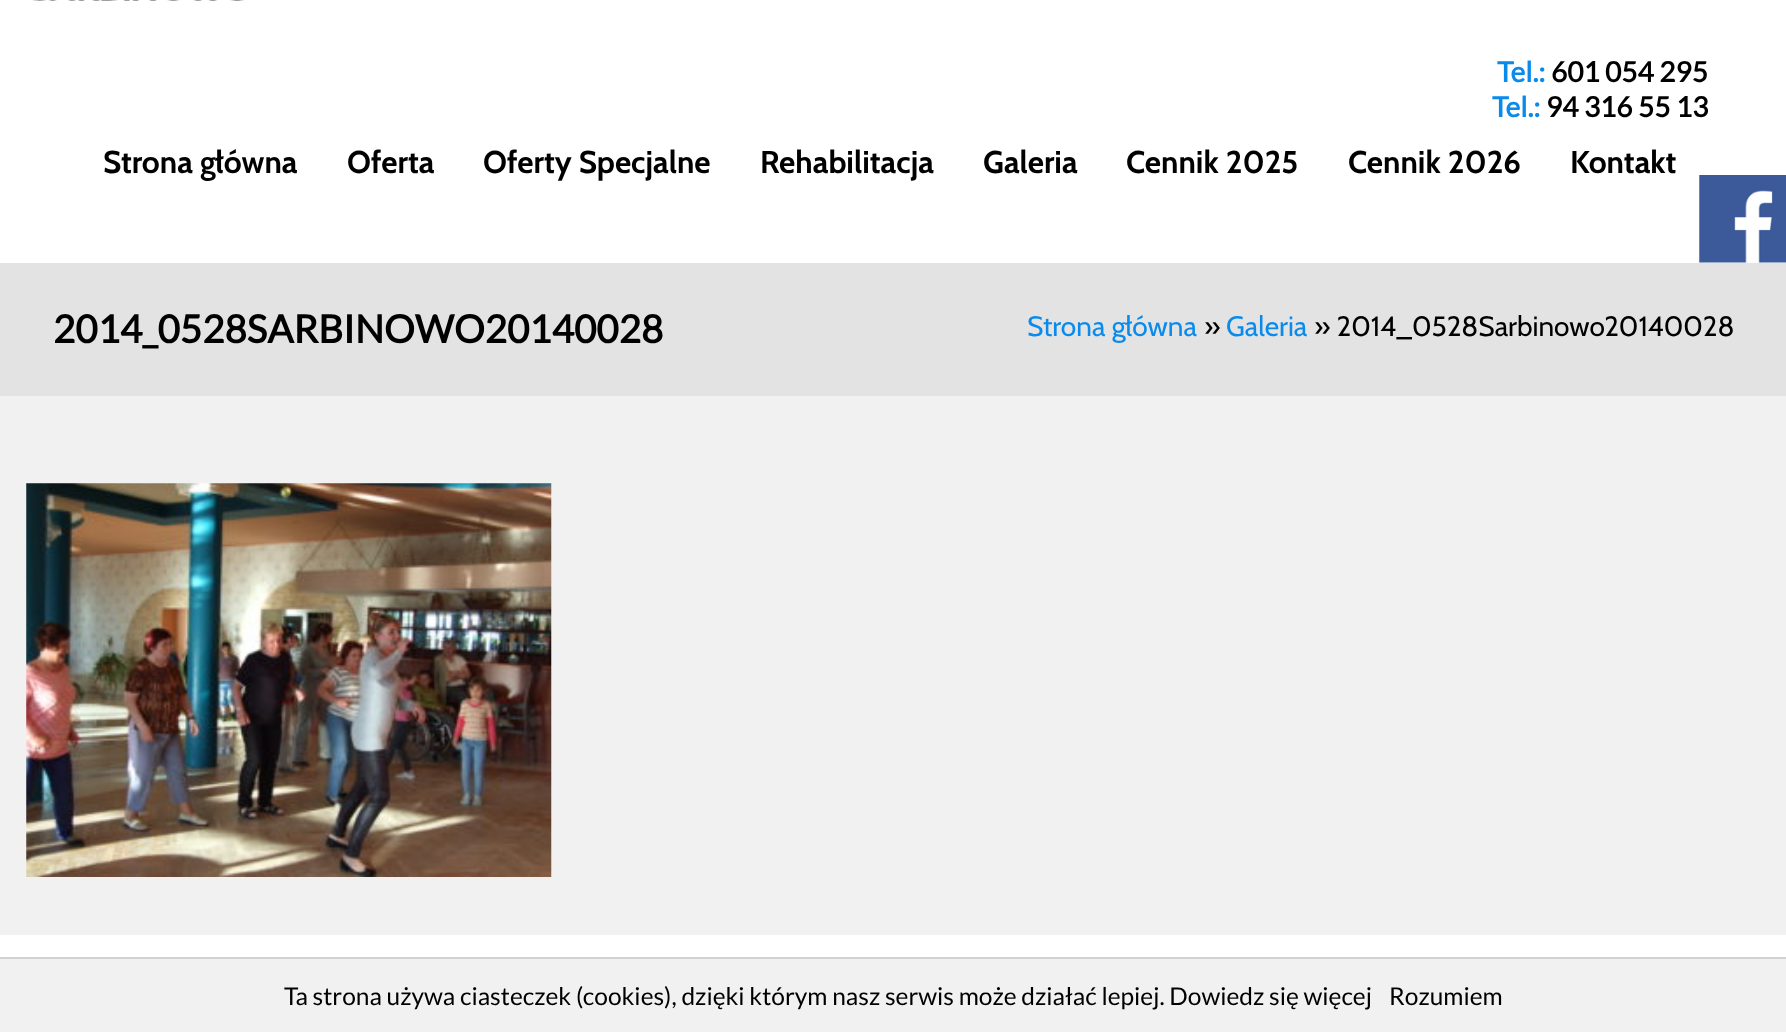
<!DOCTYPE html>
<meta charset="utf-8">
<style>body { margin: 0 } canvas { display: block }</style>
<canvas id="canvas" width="1786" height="1032"></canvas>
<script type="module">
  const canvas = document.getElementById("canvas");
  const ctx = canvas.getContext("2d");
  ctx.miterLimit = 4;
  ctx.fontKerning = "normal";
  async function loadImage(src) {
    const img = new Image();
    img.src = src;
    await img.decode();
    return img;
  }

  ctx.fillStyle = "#f1f1f1";
  ctx.fillRect(0, 0, 1786, 1032);
  ctx.fillStyle = "#ffffff";
  ctx.fillRect(0, 0, 1786, 263);
  ctx.drawImage(await loadImage("img1.png"), 32, 0, 212, 1);
  ctx.font = "bold 28px Lato";
  ctx.fillStyle = "#0a8aeb";
  ctx.fillText("Tel.:", 1497, 82);
  ctx.fillStyle = "#000000";
  ctx.fillText("601 054 295", 1551, 82);
  ctx.fillStyle = "#0a8aeb";
  ctx.fillText("Tel.:", 1492, 117);
  ctx.fillStyle = "#000000";
  ctx.fillText("94 316 55 13", 1546, 117);
  ctx.font = "bold 31.5px Cabin";
  ctx.fillText("Strona główna", 103, 173);
  ctx.fillText("Oferta", 347, 173);
  ctx.fillText("Oferty Specjalne", 483, 173);
  ctx.fillText("Rehabilitacja", 760, 173);
  ctx.fillText("Galeria", 983, 173);
  ctx.fillText("Cennik 2025", 1126, 173);
  ctx.fillText("Cennik 2026", 1348, 173);
  ctx.fillText("Kontakt", 1570, 173);
  ctx.fillStyle = "#e3e3e3";
  ctx.fillRect(0, 263, 1786, 133);
  ctx.font = "bold 38.5px Lato";
  ctx.fillStyle = "#000000";
  ctx.fillText("2014_0528SARBINOWO20140028", 53, 343);
  ctx.font = "28px Cabin";
  ctx.fillStyle = "#0a8aeb";
  ctx.fillText("Strona główna", 1027, 336);
  ctx.fillStyle = "#000000";
  ctx.fillText("»", 1204, 336);
  ctx.fillStyle = "#0a8aeb";
  ctx.fillText("Galeria", 1226, 336);
  ctx.fillStyle = "#000000";
  ctx.fillText("» 2014_0528Sarbinowo20140028", 1314, 336);
  ctx.drawImage(await loadImage("img2.png"), 26, 483, 526, 394);
  ctx.drawImage(await loadImage("img3.png"), 1699, 175, 87, 88);
  ctx.fillStyle = "#ffffff";
  ctx.fillRect(0, 935, 1786, 22);
  ctx.fillStyle = "#d3d0d0";
  ctx.fillRect(0, 957, 1786, 2);
  ctx.font = "24.5px Lato";
  ctx.fillStyle = "#000000";
  ctx.fillText("Ta strona używa ciasteczek (cookies), dzięki którym nasz serwis może działać lepiej. Dowiedz się więcej", 284, 1005);
  ctx.fillText("Rozumiem", 1389, 1005);
</script>
